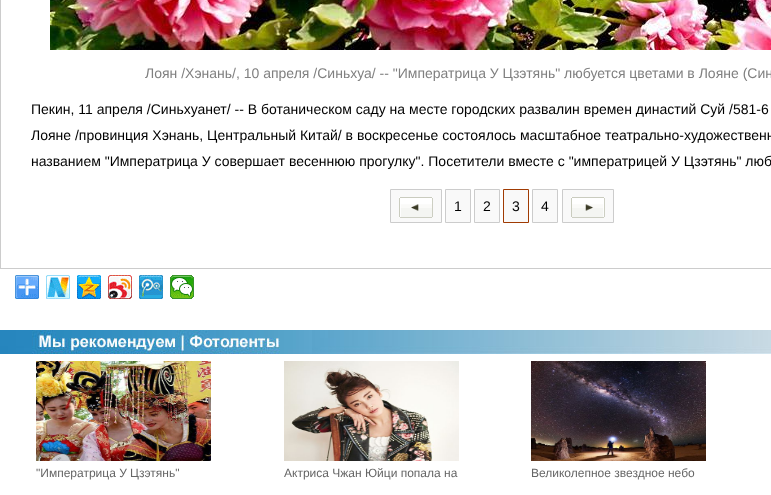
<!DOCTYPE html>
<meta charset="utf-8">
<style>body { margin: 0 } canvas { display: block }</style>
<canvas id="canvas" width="771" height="495"></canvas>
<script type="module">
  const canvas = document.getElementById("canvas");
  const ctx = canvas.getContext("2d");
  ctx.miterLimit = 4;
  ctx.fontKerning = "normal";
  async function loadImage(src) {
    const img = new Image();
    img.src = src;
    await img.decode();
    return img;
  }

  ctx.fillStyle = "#ffffff";
  ctx.fillRect(0, 0, 771, 495);
  ctx.strokeStyle = "#cccccc";
  ctx.strokeRect(0.5, -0.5, 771, 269);
  ctx.drawImage(await loadImage("img1.png"), 50, 0, 721, 50);
  ctx.font = "14px Liberation Sans";
  ctx.fillStyle = "#808080";
  ctx.fillText("Лоян /Хэнань/, 10 апреля /Синьхуа/ -- \"Императрица У Цзэтянь\" любуется цветами в Лояне (Син", 145, 78);
  ctx.fillStyle = "#000000";
  ctx.fillText("Пекин, 11 апреля /Синьхуанет/ -- В ботаническом саду на месте городских развалин времен династий Суй /581-6", 31, 114);
  ctx.fillText("Лояне /провинция Хэнань, Центральный Китай/ в воскресенье состоялось масштабное театрально-художественн", 31, 140);
  ctx.fillText("названием \"Императрица У совершает весеннюю прогулку\". Посетители вместе с \"императрицей У Цзэтянь\" люб", 31, 166);
  ctx.fillStyle = "#f9f9f9";
  ctx.beginPath();
  ctx.rect(390.5, 189.5, 51, 33);
  ctx.fill();
  ctx.stroke();
  ctx.drawImage(await loadImage("img2.png"), 399, 197, 34, 21);
  ctx.beginPath();
  ctx.rect(445.5, 189.5, 25, 33);
  ctx.fill();
  ctx.stroke();
  ctx.fillStyle = "#000000";
  ctx.fillText("1", 454, 211);
  ctx.fillStyle = "#f9f9f9";
  ctx.beginPath();
  ctx.rect(474.5, 189.5, 25, 33);
  ctx.fill();
  ctx.stroke();
  ctx.fillStyle = "#000000";
  ctx.fillText("2", 483, 211);
  ctx.fillStyle = "#f9f9f9";
  ctx.beginPath();
  ctx.rect(503.5, 189.5, 25, 33);
  ctx.fill();
  ctx.strokeStyle = "#a03b03";
  ctx.stroke();
  ctx.fillStyle = "#000000";
  ctx.fillText("3", 512, 211);
  ctx.fillStyle = "#f9f9f9";
  ctx.beginPath();
  ctx.rect(532.5, 189.5, 25, 33);
  ctx.fill();
  ctx.strokeStyle = "#cccccc";
  ctx.stroke();
  ctx.fillStyle = "#000000";
  ctx.fillText("4", 541, 211);
  ctx.fillStyle = "#f9f9f9";
  ctx.beginPath();
  ctx.rect(562.5, 189.5, 51, 33);
  ctx.fill();
  ctx.stroke();
  ctx.drawImage(await loadImage("img3.png"), 571, 197, 34, 21);
  ctx.drawImage(await loadImage("img4.png"), 15, 275, 24, 24);
  ctx.drawImage(await loadImage("img5.png"), 46, 275, 24, 24);
  ctx.drawImage(await loadImage("img6.png"), 77, 275, 24, 24);
  ctx.drawImage(await loadImage("img7.png"), 108, 275, 24, 24);
  ctx.drawImage(await loadImage("img8.png"), 139, 275, 24, 24);
  ctx.drawImage(await loadImage("img9.png"), 170, 275, 24, 24);
  ctx.drawImage(await loadImage("img10.png"), 0, 330, 771, 24);
  ctx.drawImage(await loadImage("img11.png"), 36, 361, 175, 100);
  ctx.font = "12px Liberation Sans";
  ctx.fillStyle = "#666666";
  ctx.fillText("\"Императрица У Цзэтянь\"", 36, 477);
  ctx.drawImage(await loadImage("img12.png"), 284, 361, 175, 100);
  ctx.fillText("Актриса Чжан Юйци попала на", 284, 477);
  ctx.drawImage(await loadImage("img13.png"), 531, 361, 175, 100);
  ctx.fillText("Великолепное звездное небо", 531, 477);
</script>
